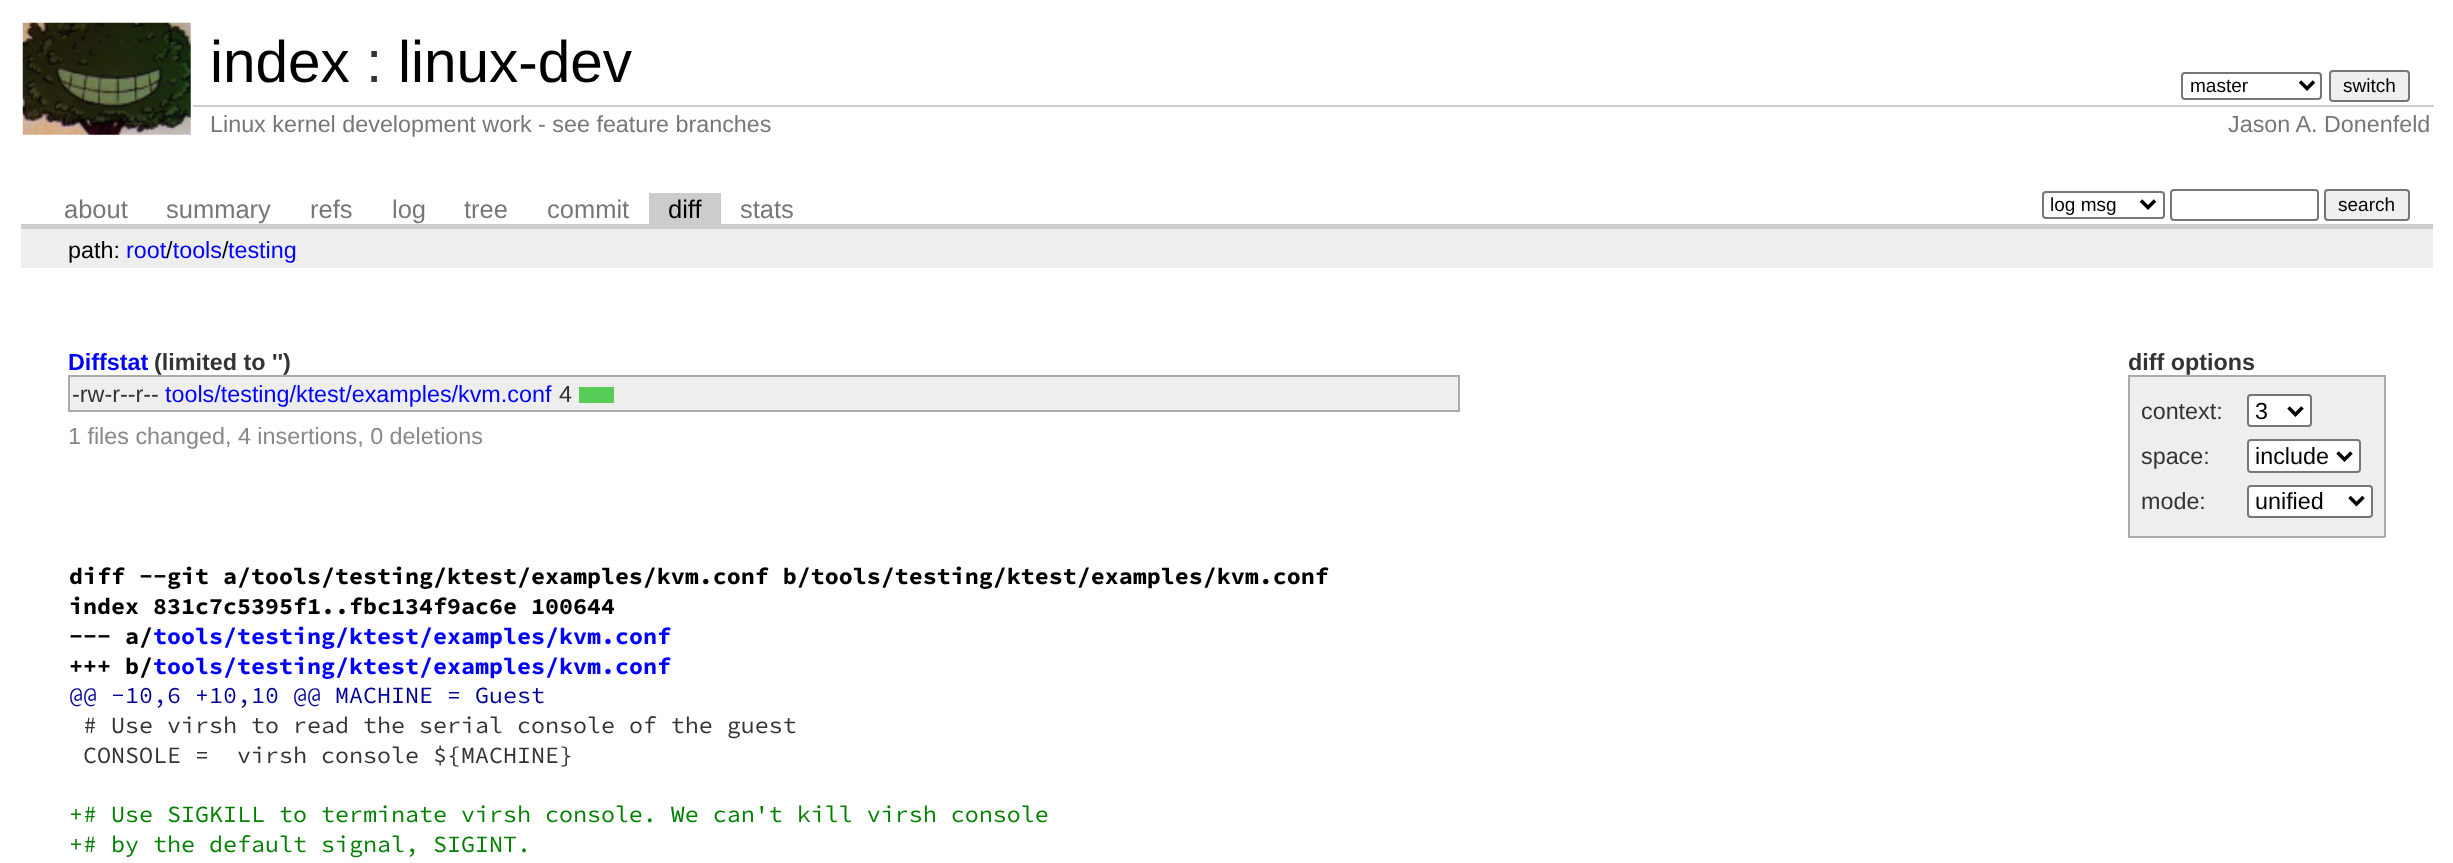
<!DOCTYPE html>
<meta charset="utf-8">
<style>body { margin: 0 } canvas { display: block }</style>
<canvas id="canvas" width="2453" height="863"></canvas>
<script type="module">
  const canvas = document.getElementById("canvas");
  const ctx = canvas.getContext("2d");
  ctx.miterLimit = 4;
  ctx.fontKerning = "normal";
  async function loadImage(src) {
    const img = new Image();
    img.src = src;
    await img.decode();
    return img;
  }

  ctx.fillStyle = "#ffffff";
  ctx.fillRect(0, 0, 2453, 863);
  ctx.drawImage(await loadImage("img1.png"), 22, 22, 169, 113);
  ctx.font = "58.5px Liberation Sans";
  ctx.fillStyle = "#000000";
  ctx.fillText("index", 210, 82);
  ctx.fillStyle = "#333333";
  ctx.fillText(":", 366, 82);
  ctx.fillStyle = "#000000";
  ctx.fillText("linux-dev", 398, 82);
  ctx.beginPath();
  ctx.roundRect(2182, 73, 139, 26, 3);
  ctx.strokeStyle = "#767676";
  ctx.lineWidth = 2;
  ctx.stroke();
  ctx.beginPath();
  ctx.moveTo(2300, 81.5);
  ctx.lineTo(2307, 88.5);
  ctx.lineTo(2314, 81.5);
  ctx.strokeStyle = "#000000";
  ctx.lineWidth = 3.5;
  ctx.stroke();
  ctx.font = "19px Liberation Sans";
  ctx.fillText("master", 2190, 92);
  ctx.fillStyle = "#efefef";
  ctx.beginPath();
  ctx.roundRect(2330, 71, 79, 30, 3);
  ctx.fill();
  ctx.strokeStyle = "#767676";
  ctx.lineWidth = 2;
  ctx.stroke();
  ctx.fillStyle = "#000000";
  ctx.fillText("switch", 2343, 92);
  ctx.font = "23.33px Liberation Sans";
  ctx.fillStyle = "#777777";
  ctx.fillText("Linux kernel development work - see feature branches", 210, 132);
  ctx.fillStyle = "#cccccc";
  ctx.fillRect(193, 105, 2241, 2);
  ctx.fillStyle = "#777777";
  ctx.fillText("Jason A. Donenfeld", 2228, 132);
  ctx.fillStyle = "#cccccc";
  ctx.fillRect(21, 224, 2412, 5);
  ctx.font = "25.5px Liberation Sans";
  ctx.fillStyle = "#777777";
  ctx.fillText("about", 64, 218);
  ctx.fillText("summary", 166, 218);
  ctx.fillText("refs", 310, 218);
  ctx.fillText("log", 392, 218);
  ctx.fillText("tree", 464, 218);
  ctx.fillText("commit", 547, 218);
  ctx.fillStyle = "#cccccc";
  ctx.fillRect(649, 193, 72, 31);
  ctx.fillStyle = "#000000";
  ctx.fillText("diff", 668, 218);
  ctx.fillStyle = "#777777";
  ctx.fillText("stats", 740, 218);
  ctx.beginPath();
  ctx.roundRect(2043, 192, 121, 26, 3);
  ctx.stroke();
  ctx.beginPath();
  ctx.moveTo(2141, 200.5);
  ctx.lineTo(2148, 207.5);
  ctx.lineTo(2155, 200.5);
  ctx.strokeStyle = "#000000";
  ctx.lineWidth = 3.5;
  ctx.stroke();
  ctx.font = "19px Liberation Sans";
  ctx.fillStyle = "#000000";
  ctx.fillText("log msg", 2050, 211);
  ctx.beginPath();
  ctx.roundRect(2171, 190, 147, 30, 3);
  ctx.strokeStyle = "#767676";
  ctx.lineWidth = 2;
  ctx.stroke();
  ctx.fillStyle = "#efefef";
  ctx.beginPath();
  ctx.roundRect(2325, 190, 84, 30, 3);
  ctx.fill();
  ctx.stroke();
  ctx.fillStyle = "#000000";
  ctx.fillText("search", 2338, 211);
  ctx.fillStyle = "#eeeeee";
  ctx.fillRect(21, 229, 2412, 39);
  ctx.font = "23.33px Liberation Sans";
  ctx.fillStyle = "#000000";
  ctx.fillText("path:", 68, 258);
  ctx.fillStyle = "#0000ff";
  ctx.fillText("root tools", 126, 258);
  ctx.fillStyle = "#000000";
  ctx.fillText("/", 166, 258);
  ctx.fillText("/", 222, 258);
  ctx.fillStyle = "#0000ff";
  ctx.fillText("testing", 228, 258);
  ctx.font = "bold 23.33px Liberation Sans";
  ctx.fillText("Diffstat", 68, 370);
  ctx.fillStyle = "#333333";
  ctx.fillText("(limited to '')", 154, 370);
  ctx.fillText("diff options", 2128, 370);
  ctx.fillStyle = "#eeeeee";
  ctx.fillRect(2130, 377, 254, 159);
  ctx.fillStyle = "#aaaaaa";
  ctx.fillRect(2128, 375, 257, 2);
  ctx.fillRect(2384, 375, 2, 162);
  ctx.fillRect(2128, 536, 257, 2);
  ctx.fillRect(2128, 375, 2, 162);
  ctx.font = "23.33px Liberation Sans";
  ctx.fillStyle = "#333333";
  ctx.fillText("context:", 2141, 419);
  ctx.fillStyle = "#ffffff";
  ctx.beginPath();
  ctx.roundRect(2248, 395, 63, 31, 3);
  ctx.fill();
  ctx.stroke();
  ctx.beginPath();
  ctx.moveTo(2288.5, 407.5);
  ctx.lineTo(2295.5, 414.5);
  ctx.lineTo(2302.5, 407.5);
  ctx.strokeStyle = "#000000";
  ctx.lineWidth = 3.5;
  ctx.stroke();
  ctx.fillStyle = "#000000";
  ctx.fillText("3", 2255, 419);
  ctx.fillStyle = "#333333";
  ctx.fillText("space:", 2141, 464);
  ctx.fillStyle = "#ffffff";
  ctx.beginPath();
  ctx.roundRect(2248, 440, 112, 32, 3);
  ctx.fill();
  ctx.strokeStyle = "#767676";
  ctx.lineWidth = 2;
  ctx.stroke();
  ctx.beginPath();
  ctx.moveTo(2337.5, 452.5);
  ctx.lineTo(2344.5, 459.5);
  ctx.lineTo(2351.5, 452.5);
  ctx.strokeStyle = "#000000";
  ctx.lineWidth = 3.5;
  ctx.stroke();
  ctx.fillStyle = "#000000";
  ctx.fillText("include", 2255, 464);
  ctx.fillStyle = "#333333";
  ctx.fillText("mode:", 2141, 509);
  ctx.fillStyle = "#ffffff";
  ctx.beginPath();
  ctx.roundRect(2248, 486, 124, 31, 3);
  ctx.fill();
  ctx.strokeStyle = "#767676";
  ctx.lineWidth = 2;
  ctx.stroke();
  ctx.beginPath();
  ctx.moveTo(2349.5, 497);
  ctx.lineTo(2356.5, 504);
  ctx.lineTo(2363.5, 497);
  ctx.strokeStyle = "#000000";
  ctx.lineWidth = 3.5;
  ctx.stroke();
  ctx.fillStyle = "#000000";
  ctx.fillText("unified", 2255, 509);
  ctx.fillStyle = "#eeeeee";
  ctx.fillRect(70, 377, 1388, 33);
  ctx.fillStyle = "#aaaaaa";
  ctx.fillRect(68, 375, 1392, 2);
  ctx.fillRect(1458, 375, 2, 36);
  ctx.fillRect(68, 410, 1392, 2);
  ctx.fillRect(68, 375, 2, 36);
  ctx.fillStyle = "#333333";
  ctx.fillText("-rw-r--r--", 72, 402);
  ctx.fillStyle = "#0000ff";
  ctx.fillText("tools/testing/ktest/examples/kvm.conf", 165, 402);
  ctx.fillStyle = "#333333";
  ctx.fillText("4", 559, 402);
  ctx.fillStyle = "#55cc55";
  ctx.fillRect(579, 387, 35, 16);
  ctx.fillStyle = "#888888";
  ctx.fillText("1 files changed, 4 insertions, 0 deletions", 68, 444);
  ctx.font = "bold 23.33px Source Code Pro";
  ctx.fillStyle = "#000000";
  ctx.fillText("diff --git a/tools/testing/ktest/examples/kvm.conf b/tools/testing/ktest/examples/kvm.conf", 69, 584);
  ctx.fillText("index 831c7c5395f1..fbc134f9ac6e 100644", 69, 614);
  ctx.fillText("--- a/", 69, 644);
  ctx.fillStyle = "#0000ff";
  ctx.fillText("tools/testing/ktest/examples/kvm.conf", 153, 644);
  ctx.fillStyle = "#000000";
  ctx.fillText("+++ b/", 69, 674);
  ctx.fillStyle = "#0000ff";
  ctx.fillText("tools/testing/ktest/examples/kvm.conf", 153, 674);
  ctx.font = "23.33px Source Code Pro";
  ctx.fillStyle = "#000099";
  ctx.fillText("@@ -10,6 +10,10 @@ MACHINE = Guest", 69, 703);
  ctx.fillStyle = "#333333";
  ctx.fillText("# Use virsh to read the serial console of the guest", 83, 733);
  ctx.fillText("CONSOLE =  virsh console ${MACHINE}", 83, 763);
  ctx.fillStyle = "#008000";
  ctx.fillText("+# Use SIGKILL to terminate virsh console. We can't kill virsh console", 69, 822);
  ctx.fillText("+# by the default signal, SIGINT.", 69, 852);
</script>
